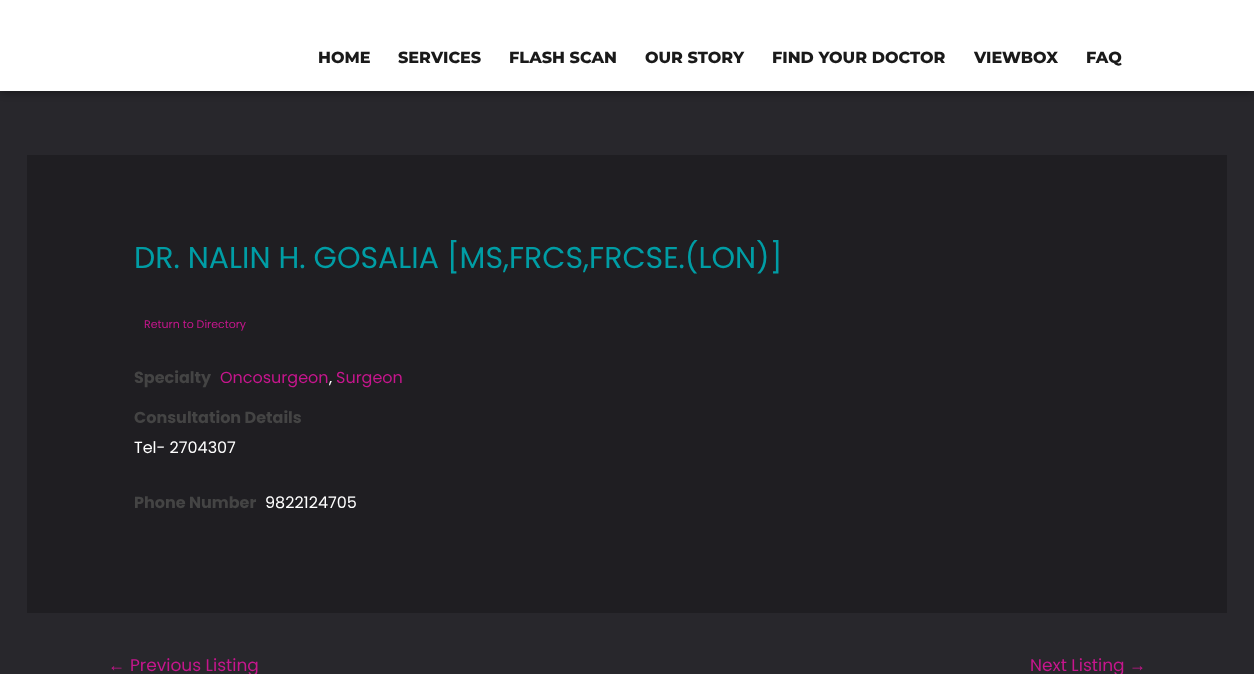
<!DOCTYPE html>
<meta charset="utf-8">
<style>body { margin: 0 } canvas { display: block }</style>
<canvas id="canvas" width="1254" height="674"></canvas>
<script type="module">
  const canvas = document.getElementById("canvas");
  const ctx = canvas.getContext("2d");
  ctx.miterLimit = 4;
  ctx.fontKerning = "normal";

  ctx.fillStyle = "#28272c";
  ctx.fillRect(0, 0, 1254, 674);
  ctx.fillStyle = "rgba(0, 0, 0, 0.5)";
  ctx.filter = "blur(5px)";
  ctx.beginPath();
  ctx.rect(0, 0, 1254, 91);
  ctx.fill();
  ctx.filter = "none";
  ctx.fillStyle = "#ffffff";
  ctx.fillRect(0, 0, 1254, 91);
  ctx.font = "800 16px Montserrat";
  ctx.fillStyle = "#1a1a1a";
  ctx.fillText("HOME", 318, 63);
  ctx.fillText("SERVICES", 398, 63);
  ctx.fillText("FLASH SCAN", 509, 63);
  ctx.fillText("OUR STORY", 645, 63);
  ctx.fillText("FIND YOUR DOCTOR", 772, 63);
  ctx.fillText("VIEWBOX", 974, 63);
  ctx.fillText("FAQ", 1086, 63);
  ctx.fillStyle = "#1f1e22";
  ctx.fillRect(27, 155, 1200, 458);
  ctx.font = "30px Poppins";
  ctx.fillStyle = "#009da5";
  ctx.fillText("DR. NALIN H. GOSALIA [MS,FRCS,FRCSE.(LON)]", 134, 268);
  ctx.font = "11px Poppins";
  ctx.fillStyle = "#c6168d";
  ctx.fillText("Return to Directory", 144, 328);
  ctx.font = "bold 16px Poppins";
  ctx.fillStyle = "#444444";
  ctx.fillText("Specialty", 134, 383);
  ctx.font = "16px Poppins";
  ctx.fillStyle = "#c6168d";
  ctx.fillText("Oncosurgeon", 220, 383);
  ctx.fillStyle = "#ffffff";
  ctx.fillText(",", 329, 383);
  ctx.fillStyle = "#c6168d";
  ctx.fillText("Surgeon", 336, 383);
  ctx.font = "bold 16px Poppins";
  ctx.fillStyle = "#444444";
  ctx.fillText("Consultation Details", 134, 423);
  ctx.font = "16px Poppins";
  ctx.fillStyle = "#ffffff";
  ctx.fillText("Tel- 2704307", 134, 453);
  ctx.font = "bold 16px Poppins";
  ctx.fillStyle = "#444444";
  ctx.fillText("Phone Number", 134, 508);
  ctx.font = "16px Poppins";
  ctx.fillStyle = "#ffffff";
  ctx.fillText("9822124705", 265, 508);
  ctx.font = "17px Liberation Sans";
  ctx.fillStyle = "#c6168d";
  ctx.fillText("←", 108, 671);
  ctx.font = "17px Poppins";
  ctx.fillText("Previous Listing", 130, 671);
  ctx.fillText("Next Listing", 1030, 671);
  ctx.font = "17px Liberation Sans";
  ctx.fillText("→", 1129, 671);
</script>
